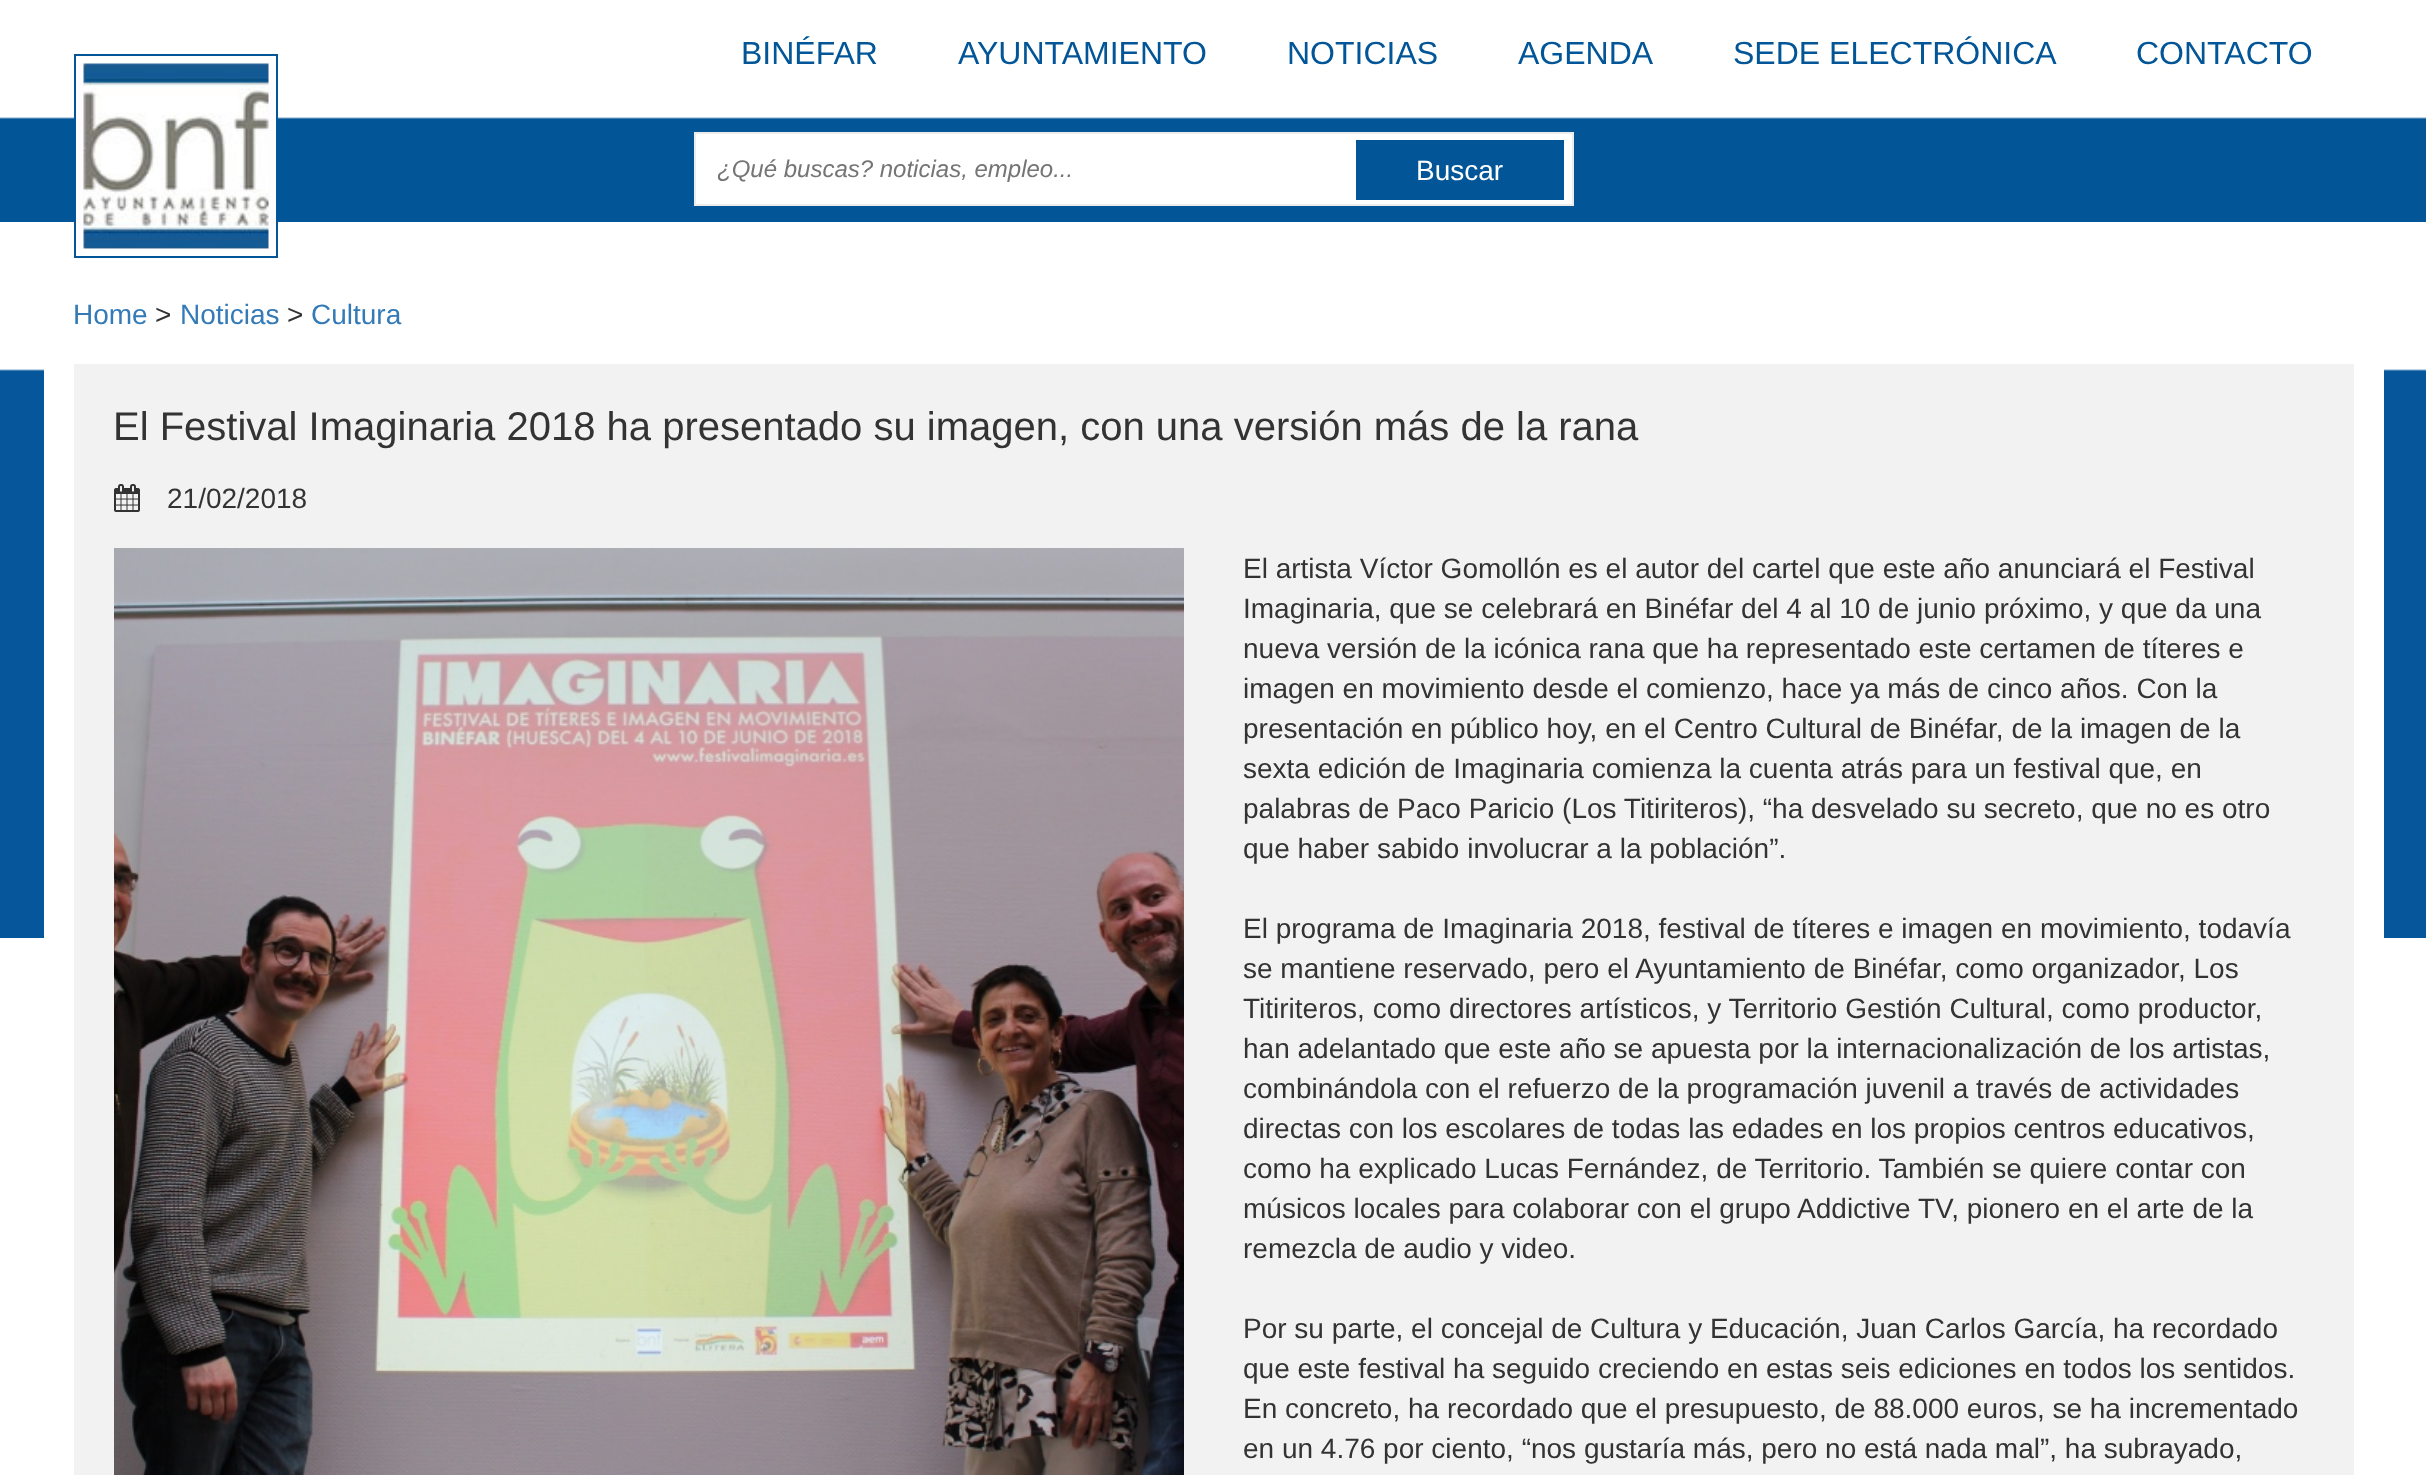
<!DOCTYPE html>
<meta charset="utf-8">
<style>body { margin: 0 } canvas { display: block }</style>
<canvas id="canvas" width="2426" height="1475"></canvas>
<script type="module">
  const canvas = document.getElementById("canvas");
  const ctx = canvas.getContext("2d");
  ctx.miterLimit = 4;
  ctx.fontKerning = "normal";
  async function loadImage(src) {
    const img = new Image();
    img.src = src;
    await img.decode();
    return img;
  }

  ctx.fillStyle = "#ffffff";
  ctx.fillRect(0, 0, 2426, 1475);
  ctx.drawImage(await loadImage("img1.png"), 0, 369, 2426, 569);
  ctx.drawImage(await loadImage("img2.png"), 0, 117, 2426, 105);
  ctx.font = "32px Liberation Sans";
  ctx.fillStyle = "#025698";
  ctx.fillText("BINÉFAR", 741, 64);
  ctx.fillText("AYUNTAMIENTO", 958, 64);
  ctx.fillText("NOTICIAS", 1287, 64);
  ctx.fillText("AGENDA", 1518, 64);
  ctx.fillText("SEDE ELECTRÓNICA", 1733, 64);
  ctx.fillText("CONTACTO", 2136, 64);
  ctx.strokeStyle = "#025698";
  ctx.lineWidth = 2;
  ctx.strokeRect(75, 55, 202, 202);
  ctx.drawImage(await loadImage("img3.png"), 76, 63, 200, 186);
  ctx.fillStyle = "#ffffff";
  ctx.beginPath();
  ctx.rect(695, 133, 878, 72);
  ctx.fill();
  ctx.strokeStyle = "#ececec";
  ctx.stroke();
  ctx.save();
  ctx.beginPath();
  ctx.rect(718, 156, 570, 28);
  ctx.clip();
  ctx.font = "italic 24px Liberation Sans";
  ctx.fillStyle = "#757575";
  ctx.fillText("¿Qué buscas? noticias, empleo...", 717, 177);
  ctx.restore();
  ctx.fillStyle = "#025698";
  ctx.fillRect(1356, 140, 208, 60);
  ctx.font = "28px Liberation Sans";
  ctx.fillStyle = "#ffffff";
  ctx.fillText("Buscar", 1416, 180);
  ctx.fillStyle = "#337ab7";
  ctx.fillText("Home", 73, 324);
  ctx.fillStyle = "#333333";
  ctx.fillText(">", 155, 324);
  ctx.fillStyle = "#337ab7";
  ctx.fillText("Noticias", 180, 324);
  ctx.fillStyle = "#333333";
  ctx.fillText(">", 287, 324);
  ctx.fillStyle = "#337ab7";
  ctx.fillText("Cultura", 311, 324);
  ctx.fillStyle = "#ffffff";
  ctx.fillRect(44, 369, 2340, 569);
  ctx.fillStyle = "#f2f2f2";
  ctx.fillRect(74, 364, 2280, 1111);
  ctx.font = "40px Liberation Sans";
  ctx.fillStyle = "#333333";
  ctx.fillText("El Festival Imaginaria 2018 ha presentado su imagen, con una versión más de la rana", 113, 440);
  ctx.drawImage(await loadImage("img4.png"), 114, 484, 26, 28);
  ctx.font = "28px Liberation Sans";
  ctx.fillText("21/02/2018", 167, 508);
  ctx.drawImage(await loadImage("img5.png"), 114, 548, 1070, 927);
  ctx.fillText("El artista Víctor Gomollón es el autor del cartel que este año anunciará el Festival", 1243, 578);
  ctx.fillText("Imaginaria, que se celebrará en Binéfar del 4 al 10 de junio próximo, y que da una", 1243, 618);
  ctx.fillText("nueva versión de la icónica rana que ha representado este certamen de títeres e", 1243, 658);
  ctx.fillText("imagen en movimiento desde el comienzo, hace ya más de cinco años. Con la", 1243, 698);
  ctx.fillText("presentación en público hoy, en el Centro Cultural de Binéfar, de la imagen de la", 1243, 738);
  ctx.fillText("sexta edición de Imaginaria comienza la cuenta atrás para un festival que, en", 1243, 778);
  ctx.fillText("palabras de Paco Paricio (Los Titiriteros), “ha desvelado su secreto, que no es otro", 1243, 818);
  ctx.fillText("que haber sabido involucrar a la población”.", 1243, 858);
  ctx.fillText("El programa de Imaginaria 2018, festival de títeres e imagen en movimiento, todavía", 1243, 938);
  ctx.fillText("se mantiene reservado, pero el Ayuntamiento de Binéfar, como organizador, Los", 1243, 978);
  ctx.fillText("Titiriteros, como directores artísticos, y Territorio Gestión Cultural, como productor,", 1243, 1018);
  ctx.fillText("han adelantado que este año se apuesta por la internacionalización de los artistas,", 1243, 1058);
  ctx.fillText("combinándola con el refuerzo de la programación juvenil a través de actividades", 1243, 1098);
  ctx.fillText("directas con los escolares de todas las edades en los propios centros educativos,", 1243, 1138);
  ctx.fillText("como ha explicado Lucas Fernández, de Territorio. También se quiere contar con", 1243, 1178);
  ctx.fillText("músicos locales para colaborar con el grupo Addictive TV, pionero en el arte de la", 1243, 1218);
  ctx.fillText("remezcla de audio y video.", 1243, 1258);
  ctx.fillText("Por su parte, el concejal de Cultura y Educación, Juan Carlos García, ha recordado", 1243, 1338);
  ctx.fillText("que este festival ha seguido creciendo en estas seis ediciones en todos los sentidos.", 1243, 1378);
  ctx.fillText("En concreto, ha recordado que el presupuesto, de 88.000 euros, se ha incrementado", 1243, 1418);
  ctx.fillText("en un 4.76 por ciento, “nos gustaría más, pero no está nada mal”, ha subrayado,", 1243, 1458);
</script>
